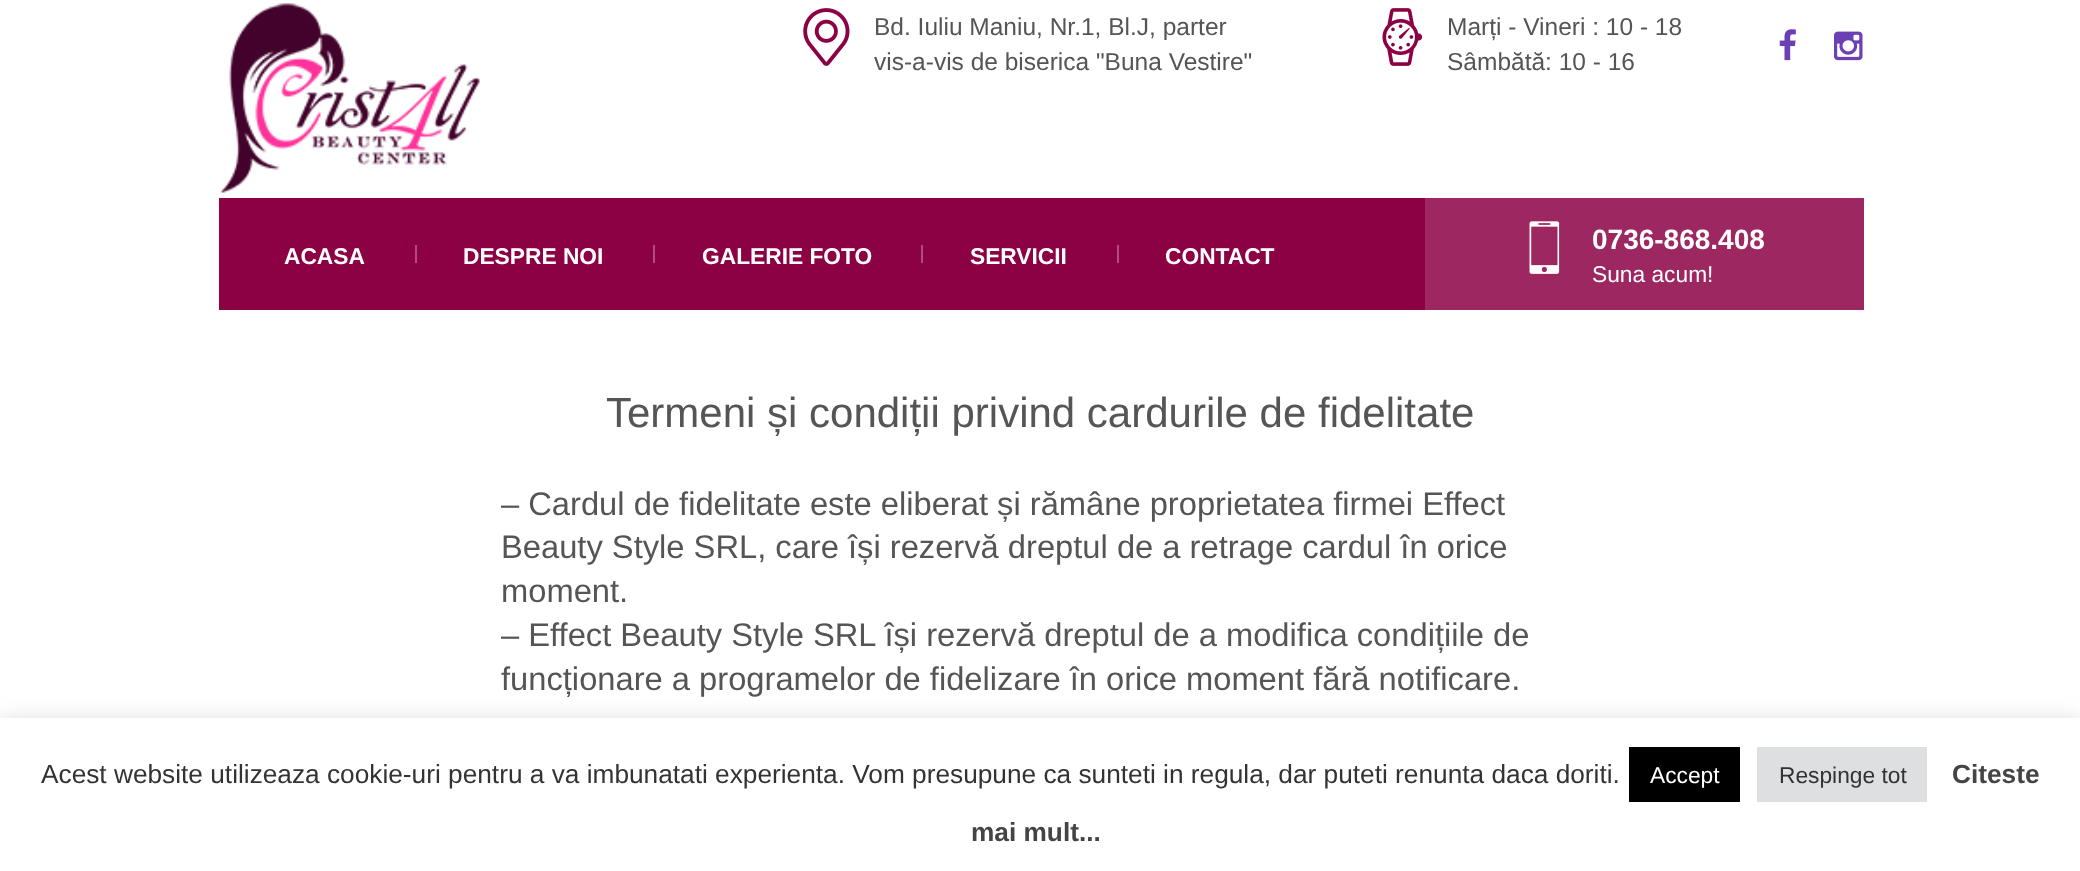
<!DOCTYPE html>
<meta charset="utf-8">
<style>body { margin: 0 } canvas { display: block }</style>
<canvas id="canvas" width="2080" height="871"></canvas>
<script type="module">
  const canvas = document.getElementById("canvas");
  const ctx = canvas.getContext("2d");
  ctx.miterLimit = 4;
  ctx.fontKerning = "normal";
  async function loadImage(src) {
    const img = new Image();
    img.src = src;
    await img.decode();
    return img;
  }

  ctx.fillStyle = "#ffffff";
  ctx.fillRect(0, 0, 2080, 871);
  ctx.drawImage(await loadImage("img1.png"), 220, 3, 260, 190);
  ctx.drawImage(await loadImage("img2.png"), 803, 8, 47, 58);
  ctx.font = "24.5px Arimo";
  ctx.fillStyle = "#555555";
  ctx.fillText("Bd. Iuliu Maniu, Nr.1, Bl.J, parter", 874, 35);
  ctx.fillText("vis-a-vis de biserica \"Buna Vestire\"", 874, 70);
  ctx.drawImage(await loadImage("img3.png"), 1382, 8, 41, 58);
  ctx.fillText("Marți - Vineri : 10 - 18", 1447, 35);
  ctx.fillText("Sâmbătă: 10 - 16", 1447, 70);
  ctx.drawImage(await loadImage("img4.png"), 1779, 29, 17, 32);
  ctx.drawImage(await loadImage("img5.png"), 1834, 31, 29, 30);
  ctx.fillStyle = "#8c0144";
  ctx.fillRect(219, 198, 1206, 112);
  ctx.font = "bold 22.75px Arimo";
  ctx.fillStyle = "#ffffff";
  ctx.fillText("ACASA", 284, 264);
  ctx.fillStyle = "#af4d7c";
  ctx.fillRect(415, 245, 2, 18);
  ctx.fillStyle = "#ffffff";
  ctx.fillText("DESPRE NOI", 463, 264);
  ctx.fillStyle = "#af4d7c";
  ctx.fillRect(653, 245, 2, 18);
  ctx.fillStyle = "#ffffff";
  ctx.fillText("GALERIE FOTO", 702, 264);
  ctx.fillStyle = "#af4d7c";
  ctx.fillRect(921, 245, 2, 18);
  ctx.fillStyle = "#ffffff";
  ctx.fillText("SERVICII", 970, 264);
  ctx.fillStyle = "#af4d7c";
  ctx.fillRect(1117, 245, 2, 18);
  ctx.fillStyle = "#ffffff";
  ctx.fillText("CONTACT", 1165, 264);
  ctx.fillStyle = "#9d2760";
  ctx.fillRect(1425, 198, 439, 112);
  ctx.drawImage(await loadImage("img6.png"), 1529, 221, 31, 53);
  ctx.font = "bold 28px Arimo";
  ctx.fillStyle = "#ffffff";
  ctx.fillText("0736-868.408", 1592, 249);
  ctx.font = "22.75px Arimo";
  ctx.fillText("Suna acum!", 1592, 282);
  ctx.font = "42px Arimo";
  ctx.fillStyle = "#555555";
  ctx.fillText("Termeni și condiții privind cardurile de fidelitate", 606, 427);
  ctx.font = "32.7px Arimo";
  ctx.fillText("– Cardul de fidelitate este eliberat și rămâne proprietatea firmei Effect", 501, 515);
  ctx.fillText("Beauty Style SRL, care își rezervă dreptul de a retrage cardul în orice", 501, 558);
  ctx.fillText("moment.", 501, 602);
  ctx.fillText("– Effect Beauty Style SRL își rezervă dreptul de a modifica condițiile de", 501, 646);
  ctx.fillText("funcționare a programelor de fidelizare în orice moment fără notificare.", 501, 690);
  ctx.fillStyle = "rgba(172, 171, 171, 0.3)";
  ctx.filter = "blur(9px)";
  ctx.beginPath();
  ctx.rect(0, 716, 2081, 154);
  ctx.fill();
  ctx.filter = "none";
  ctx.fillStyle = "#ffffff";
  ctx.fillRect(0, 718, 2080, 153);
  ctx.font = "26.25px Arimo";
  ctx.fillStyle = "#333333";
  ctx.fillText("Acest website utilizeaza cookie-uri pentru a va imbunatati experienta. Vom presupune ca sunteti in regula, dar puteti renunta daca doriti.", 41, 783);
  ctx.fillStyle = "#000000";
  ctx.fillRect(1629, 747, 111, 55);
  ctx.font = "22.75px Arimo";
  ctx.fillStyle = "#ffffff";
  ctx.fillText("Accept", 1650, 783);
  ctx.fillStyle = "#dedfe0";
  ctx.fillRect(1757, 747, 170, 55);
  ctx.fillStyle = "#333333";
  ctx.fillText("Respinge tot", 1779, 783);
  ctx.font = "bold 26.25px Arimo";
  ctx.fillStyle = "#444444";
  ctx.fillText("Citeste", 1952, 783);
  ctx.fillText("mai mult...", 971, 841);
</script>
